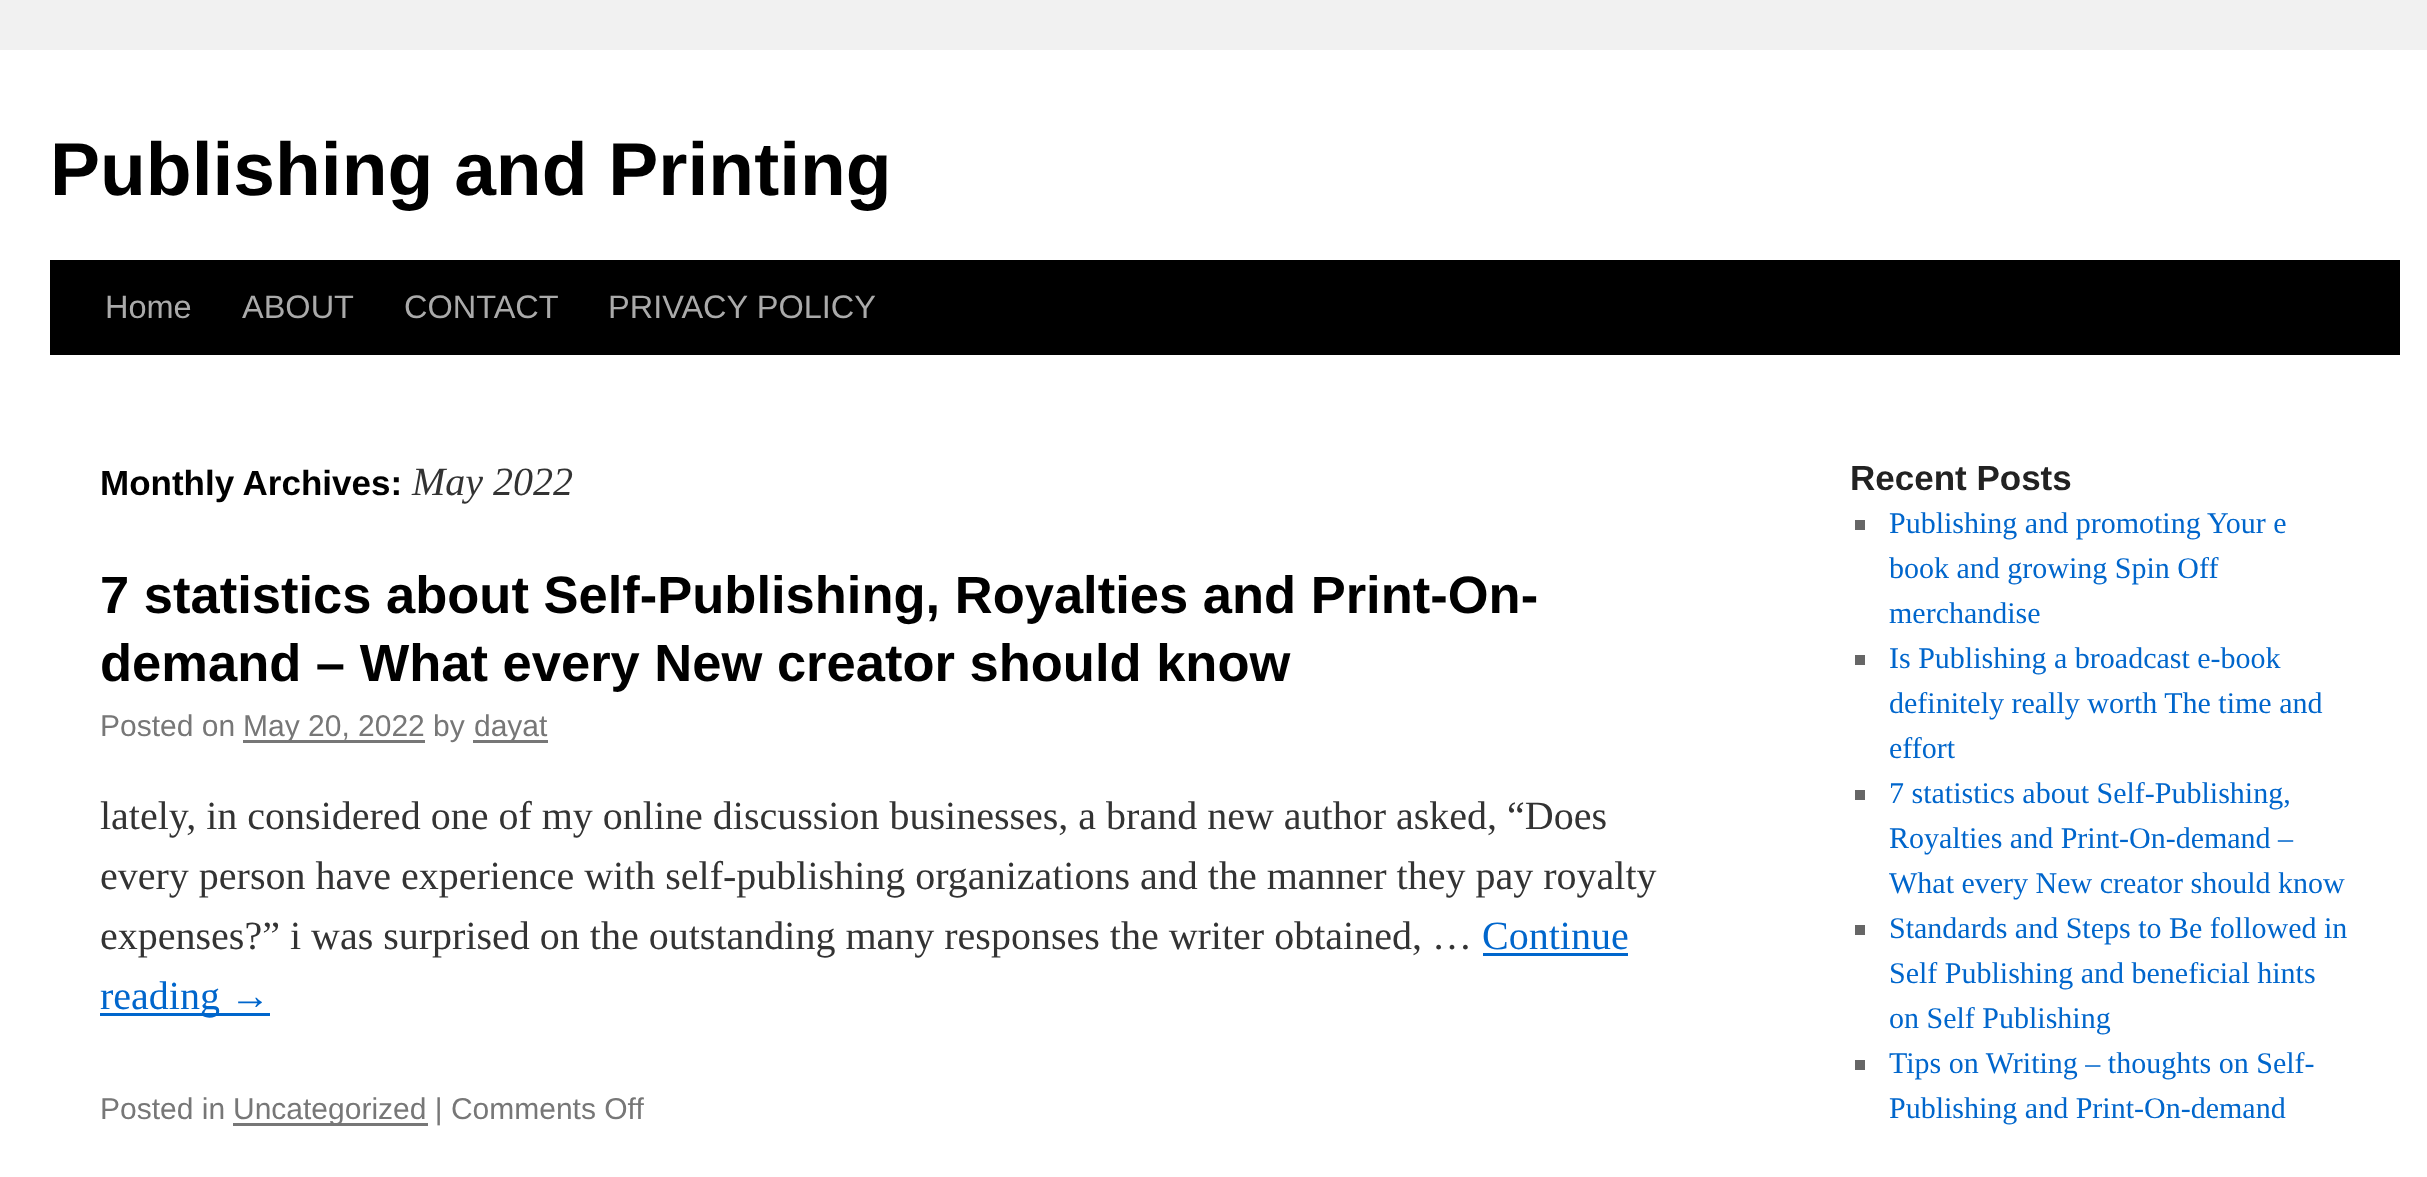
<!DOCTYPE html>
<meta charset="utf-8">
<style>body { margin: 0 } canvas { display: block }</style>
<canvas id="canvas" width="2427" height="1177"></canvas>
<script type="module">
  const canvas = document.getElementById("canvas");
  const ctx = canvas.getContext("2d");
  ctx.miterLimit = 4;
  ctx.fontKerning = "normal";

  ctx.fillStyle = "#f1f1f1";
  ctx.fillRect(0, 0, 2427, 1177);
  ctx.fillStyle = "#ffffff";
  ctx.fillRect(0, 50, 2427, 1127);
  ctx.font = "bold 75px Liberation Sans";
  ctx.fillStyle = "#000000";
  ctx.fillText("Publishing and Printing", 50, 195);
  ctx.fillRect(50, 260, 2350, 95);
  ctx.font = "32.5px Liberation Sans";
  ctx.fillStyle = "#aaaaaa";
  ctx.fillText("Home", 105, 318);
  ctx.fillText("ABOUT", 242, 318);
  ctx.fillText("CONTACT", 404, 318);
  ctx.fillText("PRIVACY POLICY", 608, 318);
  ctx.font = "bold 35px Liberation Sans";
  ctx.fillStyle = "#000000";
  ctx.fillText("Monthly Archives:", 100, 495);
  ctx.font = "italic 40px Liberation Serif";
  ctx.fillStyle = "#333333";
  ctx.fillText("May 2022", 412, 495);
  ctx.font = "bold 52.5px Liberation Sans";
  ctx.fillStyle = "#000000";
  ctx.fillText("7 statistics about Self-Publishing, Royalties and Print-On-", 100, 613);
  ctx.fillText("demand – What every New creator should know", 100, 681);
  ctx.font = "30px Liberation Sans";
  ctx.fillStyle = "#777777";
  ctx.fillText("Posted on", 100, 736);
  ctx.fillRect(243, 740, 182, 3);
  ctx.fillText("May 20, 2022 by", 243, 736);
  ctx.fillRect(473, 740, 75, 3);
  ctx.fillText("dayat", 474, 736);
  ctx.font = "40px Liberation Serif";
  ctx.fillStyle = "#333333";
  ctx.fillText("lately, in considered one of my online discussion businesses, a brand new author asked, “Does", 100, 829);
  ctx.fillText("every person have experience with self-publishing organizations and the manner they pay royalty", 100, 889);
  ctx.fillText("expenses?” i was surprised on the outstanding many responses the writer obtained, …", 100, 949);
  ctx.fillStyle = "#0066cc";
  ctx.fillText("Continue", 1482, 949);
  ctx.fillRect(1483, 953, 145, 3);
  ctx.fillRect(100, 1013, 170, 3);
  ctx.fillText("reading →", 100, 1009);
  ctx.font = "30px Liberation Sans";
  ctx.fillStyle = "#777777";
  ctx.fillText("Posted in", 100, 1119);
  ctx.fillRect(233, 1123, 195, 3);
  ctx.fillText("Uncategorized | Comments Off", 233, 1119);
  ctx.font = "bold 35px Liberation Sans";
  ctx.fillStyle = "#222222";
  ctx.fillText("Recent Posts", 1850, 490);
  ctx.fillStyle = "#666666";
  ctx.fillRect(1855, 520, 10, 10);
  ctx.font = "30px Liberation Serif";
  ctx.fillStyle = "#0066cc";
  ctx.fillText("Publishing and promoting Your e", 1889, 533);
  ctx.fillText("book and growing Spin Off", 1889, 578);
  ctx.fillText("merchandise", 1889, 623);
  ctx.fillStyle = "#666666";
  ctx.fillRect(1855, 655, 10, 10);
  ctx.fillStyle = "#0066cc";
  ctx.fillText("Is Publishing a broadcast e-book", 1889, 668);
  ctx.fillText("definitely really worth The time and", 1889, 713);
  ctx.fillText("effort", 1889, 758);
  ctx.fillStyle = "#666666";
  ctx.fillRect(1855, 790, 10, 10);
  ctx.fillStyle = "#0066cc";
  ctx.fillText("7 statistics about Self-Publishing,", 1889, 803);
  ctx.fillText("Royalties and Print-On-demand –", 1889, 848);
  ctx.fillText("What every New creator should know", 1889, 893);
  ctx.fillStyle = "#666666";
  ctx.fillRect(1855, 925, 10, 10);
  ctx.fillStyle = "#0066cc";
  ctx.fillText("Standards and Steps to Be followed in", 1889, 938);
  ctx.fillText("Self Publishing and beneficial hints", 1889, 983);
  ctx.fillText("on Self Publishing", 1889, 1028);
  ctx.fillStyle = "#666666";
  ctx.fillRect(1855, 1060, 10, 10);
  ctx.fillStyle = "#0066cc";
  ctx.fillText("Tips on Writing – thoughts on Self-", 1889, 1073);
  ctx.fillText("Publishing and Print-On-demand", 1889, 1118);
</script>
